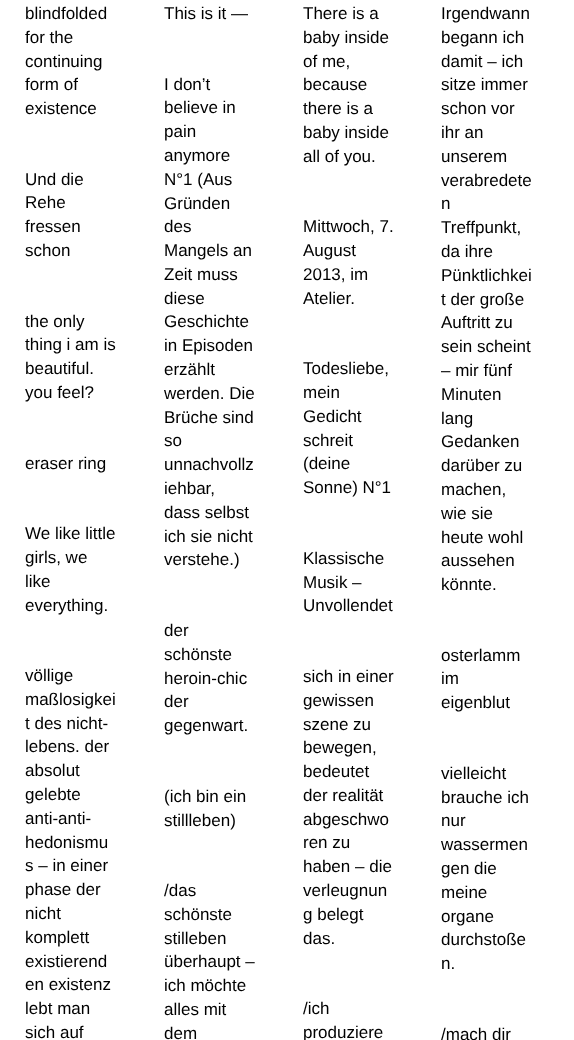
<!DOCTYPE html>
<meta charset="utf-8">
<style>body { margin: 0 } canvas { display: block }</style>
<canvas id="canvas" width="574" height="1040"></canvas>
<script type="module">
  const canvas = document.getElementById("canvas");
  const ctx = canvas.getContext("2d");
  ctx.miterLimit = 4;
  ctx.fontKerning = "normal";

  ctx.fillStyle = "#ffffff";
  ctx.fillRect(0, 0, 574, 1040);
  ctx.font = "17px Liberation Sans";
  ctx.fillStyle = "#000000";
  ctx.fillText("blindfolded", 25, 19);
  ctx.fillText("for the", 25, 43);
  ctx.fillText("continuing", 25, 67);
  ctx.fillText("form of", 25, 90);
  ctx.fillText("existence", 25, 114);
  ctx.fillText("This is it —", 164, 19);
  ctx.fillText("There is a", 303, 19);
  ctx.fillText("baby inside", 303, 43);
  ctx.fillText("of me,", 303, 67);
  ctx.fillText("because", 303, 90);
  ctx.fillText("there is a", 303, 114);
  ctx.fillText("baby inside", 303, 138);
  ctx.fillText("all of you.", 303, 162);
  ctx.fillText("Irgendwann", 441, 19);
  ctx.fillText("begann ich", 441, 43);
  ctx.fillText("damit – ich", 441, 67);
  ctx.fillText("sitze immer", 441, 90);
  ctx.fillText("schon vor", 441, 114);
  ctx.fillText("ihr an", 441, 138);
  ctx.fillText("unserem", 441, 162);
  ctx.fillText("verabredete", 441, 186);
  ctx.fillText("n", 441, 209);
  ctx.fillText("Treffpunkt,", 441, 233);
  ctx.fillText("da ihre", 441, 257);
  ctx.fillText("Pünktlichkei", 441, 281);
  ctx.fillText("t der große", 441, 305);
  ctx.fillText("Auftritt zu", 441, 328);
  ctx.fillText("sein scheint", 441, 352);
  ctx.fillText("– mir fünf", 441, 376);
  ctx.fillText("Minuten", 441, 400);
  ctx.fillText("lang", 441, 424);
  ctx.fillText("Gedanken", 441, 447);
  ctx.fillText("darüber zu", 441, 471);
  ctx.fillText("machen,", 441, 495);
  ctx.fillText("wie sie", 441, 519);
  ctx.fillText("heute wohl", 441, 543);
  ctx.fillText("aussehen", 441, 566);
  ctx.fillText("könnte.", 441, 590);
  ctx.fillText("Und die", 25, 185);
  ctx.fillText("Rehe", 25, 208);
  ctx.fillText("fressen", 25, 232);
  ctx.fillText("schon", 25, 256);
  ctx.fillText("I don’t", 164, 90);
  ctx.fillText("believe in", 164, 113);
  ctx.fillText("pain", 164, 137);
  ctx.fillText("anymore", 164, 161);
  ctx.fillText("N°1 (Aus", 164, 185);
  ctx.fillText("Gründen", 164, 209);
  ctx.fillText("des", 164, 232);
  ctx.fillText("Mangels an", 164, 256);
  ctx.fillText("Zeit muss", 164, 280);
  ctx.fillText("diese", 164, 304);
  ctx.fillText("Geschichte", 164, 327);
  ctx.fillText("in Episoden", 164, 351);
  ctx.fillText("erzählt", 164, 375);
  ctx.fillText("werden. Die", 164, 399);
  ctx.fillText("Brüche sind", 164, 423);
  ctx.fillText("so", 164, 446);
  ctx.fillText("unnachvollz", 164, 470);
  ctx.fillText("iehbar,", 164, 494);
  ctx.fillText("dass selbst", 164, 518);
  ctx.fillText("ich sie nicht", 164, 542);
  ctx.fillText("verstehe.)", 164, 565);
  ctx.fillText("Mittwoch, 7.", 303, 232);
  ctx.fillText("August", 303, 256);
  ctx.fillText("2013, im", 303, 280);
  ctx.fillText("Atelier.", 303, 304);
  ctx.fillText("the only", 25, 327);
  ctx.fillText("thing i am is", 25, 350);
  ctx.fillText("beautiful.", 25, 374);
  ctx.fillText("you feel?", 25, 398);
  ctx.fillText("Todesliebe,", 303, 374);
  ctx.fillText("mein", 303, 398);
  ctx.fillText("Gedicht", 303, 422);
  ctx.fillText("schreit", 303, 446);
  ctx.fillText("(deine", 303, 469);
  ctx.fillText("Sonne) N°1", 303, 493);
  ctx.fillText("eraser ring", 25, 469);
  ctx.fillText("We like little", 25, 539);
  ctx.fillText("girls, we", 25, 563);
  ctx.fillText("like", 25, 587);
  ctx.fillText("everything.", 25, 611);
  ctx.fillText("Klassische", 303, 564);
  ctx.fillText("Musik –", 303, 588);
  ctx.fillText("Unvollendet", 303, 611);
  ctx.fillText("völlige", 25, 681);
  ctx.fillText("maßlosigkei", 25, 705);
  ctx.fillText("t des nicht-", 25, 729);
  ctx.fillText("lebens. der", 25, 752);
  ctx.fillText("absolut", 25, 776);
  ctx.fillText("gelebte", 25, 800);
  ctx.fillText("anti-anti-", 25, 824);
  ctx.fillText("hedonismu", 25, 848);
  ctx.fillText("s – in einer", 25, 871);
  ctx.fillText("phase der", 25, 895);
  ctx.fillText("nicht", 25, 919);
  ctx.fillText("komplett", 25, 943);
  ctx.fillText("existierend", 25, 967);
  ctx.fillText("en existenz", 25, 990);
  ctx.fillText("lebt man", 25, 1014);
  ctx.fillText("sich auf", 25, 1038);
  ctx.fillText("der", 164, 636);
  ctx.fillText("schönste", 164, 660);
  ctx.fillText("heroin-chic", 164, 684);
  ctx.fillText("der", 164, 707);
  ctx.fillText("gegenwart.", 164, 731);
  ctx.fillText("sich in einer", 303, 682);
  ctx.fillText("gewissen", 303, 706);
  ctx.fillText("szene zu", 303, 730);
  ctx.fillText("bewegen,", 303, 753);
  ctx.fillText("bedeutet", 303, 777);
  ctx.fillText("der realität", 303, 801);
  ctx.fillText("abgeschwo", 303, 825);
  ctx.fillText("ren zu", 303, 848);
  ctx.fillText("haben – die", 303, 872);
  ctx.fillText("verleugnun", 303, 896);
  ctx.fillText("g belegt", 303, 920);
  ctx.fillText("das.", 303, 944);
  ctx.fillText("osterlamm", 441, 661);
  ctx.fillText("im", 441, 684);
  ctx.fillText("eigenblut", 441, 708);
  ctx.fillText("(ich bin ein", 164, 802);
  ctx.fillText("stillleben)", 164, 826);
  ctx.fillText("vielleicht", 441, 779);
  ctx.fillText("brauche ich", 441, 803);
  ctx.fillText("nur", 441, 826);
  ctx.fillText("wassermen", 441, 850);
  ctx.fillText("gen die", 441, 874);
  ctx.fillText("meine", 441, 898);
  ctx.fillText("organe", 441, 922);
  ctx.fillText("durchstoße", 441, 945);
  ctx.fillText("n.", 441, 969);
  ctx.fillText("/das", 164, 896);
  ctx.fillText("schönste", 164, 920);
  ctx.fillText("stilleben", 164, 944);
  ctx.fillText("überhaupt –", 164, 967);
  ctx.fillText("ich möchte", 164, 991);
  ctx.fillText("alles mit", 164, 1015);
  ctx.fillText("dem", 164, 1039);
  ctx.fillText("/ich", 303, 1014);
  ctx.fillText("produziere", 303, 1038);
  ctx.fillText("/mach dir", 441, 1040);
</script>
